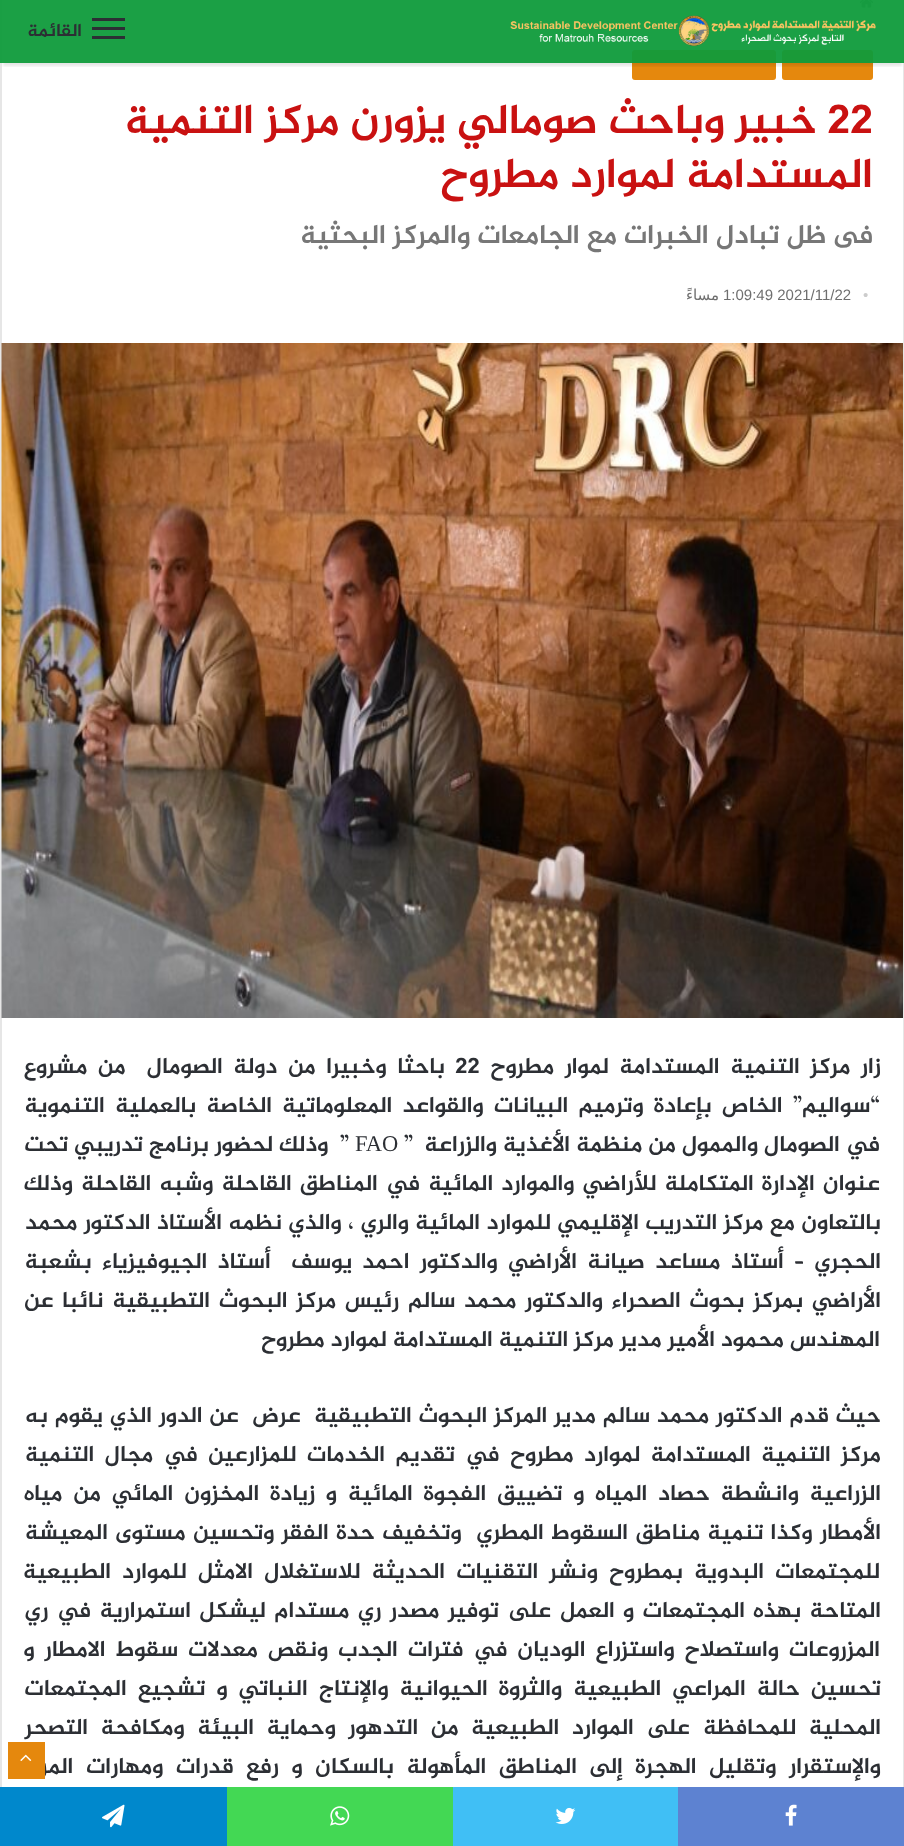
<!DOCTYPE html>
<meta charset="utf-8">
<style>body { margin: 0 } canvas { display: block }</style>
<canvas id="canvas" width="904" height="1846"></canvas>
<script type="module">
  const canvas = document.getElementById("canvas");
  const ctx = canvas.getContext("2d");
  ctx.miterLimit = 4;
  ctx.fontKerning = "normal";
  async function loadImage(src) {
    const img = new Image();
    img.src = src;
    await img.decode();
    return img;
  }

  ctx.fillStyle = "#ffffff";
  ctx.fillRect(0, 0, 904, 1846);
  ctx.strokeStyle = "#e6e6e6";
  ctx.lineWidth = 2;
  ctx.strokeRect(1, -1, 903, 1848);
  ctx.drawImage(await loadImage("img2.png"), 859, 0, 15, 8);
  ctx.fillStyle = "#e5880d";
  ctx.beginPath();
  ctx.roundRect(782, 50, 91, 30, 3);
  ctx.fill();
  ctx.beginPath();
  ctx.roundRect(632, 50, 144, 30, 3);
  ctx.fill();
  ctx.save();
  ctx.beginPath();
  ctx.rect(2, 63, 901, 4);
  ctx.clip();
  ctx.fillStyle = "rgba(0, 0, 0, 0.1)";
  ctx.filter = "blur(1.5px)";
  ctx.beginPath();
  ctx.rect(3, 9, 899, 57);
  ctx.fill();
  ctx.filter = "none";
  ctx.restore();
  ctx.fillStyle = "rgba(15, 155, 59, 0.95)";
  ctx.fillRect(0, 0, 904, 63);
  ctx.drawImage(await loadImage("img1.png"), 510, 15, 366, 31);
  ctx.fillStyle = "#2c2f34";
  ctx.fillRect(92, 27, 33, 3);
  ctx.fillRect(92, 18, 33, 3);
  ctx.fillRect(92, 36, 33, 3);
  ctx.direction = "rtl";
  ctx.font = "bold 18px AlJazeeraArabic";
  ctx.fillText("القائمة", 82, 36);
  ctx.direction = "ltr";
  ctx.font = "bold 42px AlJazeeraArabic";
  ctx.fillStyle = "#c91111";
  ctx.fillText("22", 827, 133);
  ctx.direction = "rtl";
  ctx.fillText("خبير وباحث صومالي يزورن مركز التنمية", 817, 133);
  ctx.fillText("المستدامة لموارد مطروح", 873, 187);
  ctx.font = "bold 27px AlJazeeraArabic";
  ctx.fillStyle = "#777777";
  ctx.fillText("فى ظل تبادل الخبرات مع الجامعات والمركز البحثية", 873, 243);
  ctx.direction = "ltr";
  ctx.font = "15px Liberation Sans";
  ctx.fillStyle = "#cccccc";
  ctx.fillText("•", 863, 300);
  ctx.fillStyle = "#6e6e6e";
  ctx.fillText("1:09:49 2021/11/22", 723, 300);
  ctx.direction = "rtl";
  ctx.font = "15px DejaVu Sans";
  ctx.fillText("مساءً", 719, 300);
  ctx.drawImage(await loadImage("img3.png"), 1, 343, 902, 675);
  ctx.wordSpacing = "4.75px";
  ctx.font = "bold 22.5px AlJazeeraArabic";
  ctx.fillStyle = "#2c2f34";
  ctx.fillText("زار مركز التنمية المستدامة لموار مطروح", 881, 1073);
  ctx.wordSpacing = "0px";
  ctx.direction = "ltr";
  ctx.fillText("22", 455, 1073);
  ctx.wordSpacing = "4.75px";
  ctx.direction = "rtl";
  ctx.fillText("باحثا وخبيرا من دولة الصومال  من مشروع", 445, 1073);
  ctx.wordSpacing = "4.25px";
  ctx.fillText("“سواليم” الخاص بإعادة وترميم البيانات والقواعد المعلوماتية الخاصة بالعملية التنموية", 880, 1112);
  ctx.wordSpacing = "0px";
  ctx.fillText("في الصومال والممول من منظمة الأغذية والزراعة  ”", 880, 1151);
  ctx.direction = "ltr";
  ctx.font = "22.5px Liberation Serif";
  ctx.fillText("FAO", 355, 1151);
  ctx.direction = "rtl";
  ctx.font = "bold 22.5px AlJazeeraArabic";
  ctx.fillText("”  وذلك لحضور برنامج تدريبي تحت", 349, 1151);
  ctx.wordSpacing = "2.25px";
  ctx.fillText("عنوان الإدارة المتكاملة للأراضي والموارد المائية في المناطق القاحلة وشبه القاحلة وذلك", 880, 1190);
  ctx.wordSpacing = "0.5px";
  ctx.fillText("بالتعاون مع مركز التدريب الإقليمي للموارد المائية والري ، والذي نظمه الأستاذ الدكتور محمد", 881, 1229);
  ctx.wordSpacing = "4.5px";
  ctx.fillText("الحجري – أستاذ مساعد صيانة الأراضي والدكتور احمد يوسف  أستاذ الجيوفيزياء بشعبة", 881, 1268);
  ctx.wordSpacing = "2.9px";
  ctx.fillText("الأراضي بمركز بحوث الصحراء والدكتور محمد سالم رئيس مركز البحوث التطبيقية نائبا عن", 881, 1307);
  ctx.wordSpacing = "0px";
  ctx.fillText("المهندس محمود الأمير مدير مركز التنمية المستدامة لموارد مطروح", 880, 1346);
  ctx.wordSpacing = "0.9px";
  ctx.fillText("حيث قدم الدكتور محمد سالم مدير المركز البحوث التطبيقية  عرض  عن الدور الذي يقوم به", 881, 1422);
  ctx.wordSpacing = "4.5px";
  ctx.fillText("مركز التنمية المستدامة لموارد مطروح في تقديم الخدمات للمزارعين في مجال التنمية", 881, 1461);
  ctx.wordSpacing = "5px";
  ctx.fillText("الزراعية وانشطة حصاد المياه و تضييق الفجوة المائية و زيادة المخزون المائي من مياه", 881, 1500);
  ctx.wordSpacing = "1.5px";
  ctx.fillText("الأمطار وكذا تنمية مناطق السقوط المطري  وتخفيف حدة الفقر وتحسين مستوى المعيشة", 881, 1539);
  ctx.wordSpacing = "5.25px";
  ctx.fillText("للمجتمعات البدوية بمطروح ونشر التقنيات الحديثة للاستغلال الامثل للموارد الطبيعية", 880, 1578);
  ctx.wordSpacing = "2.6px";
  ctx.fillText("المتاحة بهذه المجتمعات و العمل على توفير مصدر ري مستدام ليشكل استمرارية في ري", 881, 1617);
  ctx.wordSpacing = "4.1px";
  ctx.fillText("المزروعات واستصلاح واستزراع الوديان في فترات الجدب ونقص معدلات سقوط الامطار و", 880, 1656);
  ctx.wordSpacing = "5.25px";
  ctx.fillText("تحسين حالة المراعي الطبيعية والثروة الحيوانية والإنتاج النباتي و تشجيع المجتمعات", 881, 1695);
  ctx.wordSpacing = "6.75px";
  ctx.fillText("المحلية للمحافظة على الموارد الطبيعية من التدهور وحماية البيئة ومكافحة التصحر", 881, 1734);
  ctx.fillText("واﻹستقرار وتقليل الهجرة إلى المناطق المأهولة بالسكان و رفع قدرات ومهارات المرأة", 881, 1773);
  ctx.fillStyle = "#e5880d";
  ctx.fillRect(8, 1742, 37, 37);
  ctx.drawImage(await loadImage("img4.png"), 20, 1754, 12, 7);
  ctx.fillStyle = "#5d82d1";
  ctx.fillRect(678, 1787, 226, 59);
  ctx.drawImage(await loadImage("img5.png"), 785, 1804, 12, 22);
  ctx.fillStyle = "#40bff5";
  ctx.fillRect(453, 1787, 225, 59);
  ctx.drawImage(await loadImage("img6.png"), 555, 1807, 21, 17);
  ctx.fillStyle = "#43d854";
  ctx.fillRect(227, 1787, 226, 59);
  ctx.drawImage(await loadImage("img7.png"), 330, 1806, 20, 20);
  ctx.fillStyle = "#0088cc";
  ctx.fillRect(0, 1787, 227, 59);
  ctx.drawImage(await loadImage("img8.png"), 102, 1804, 23, 24);
</script>
